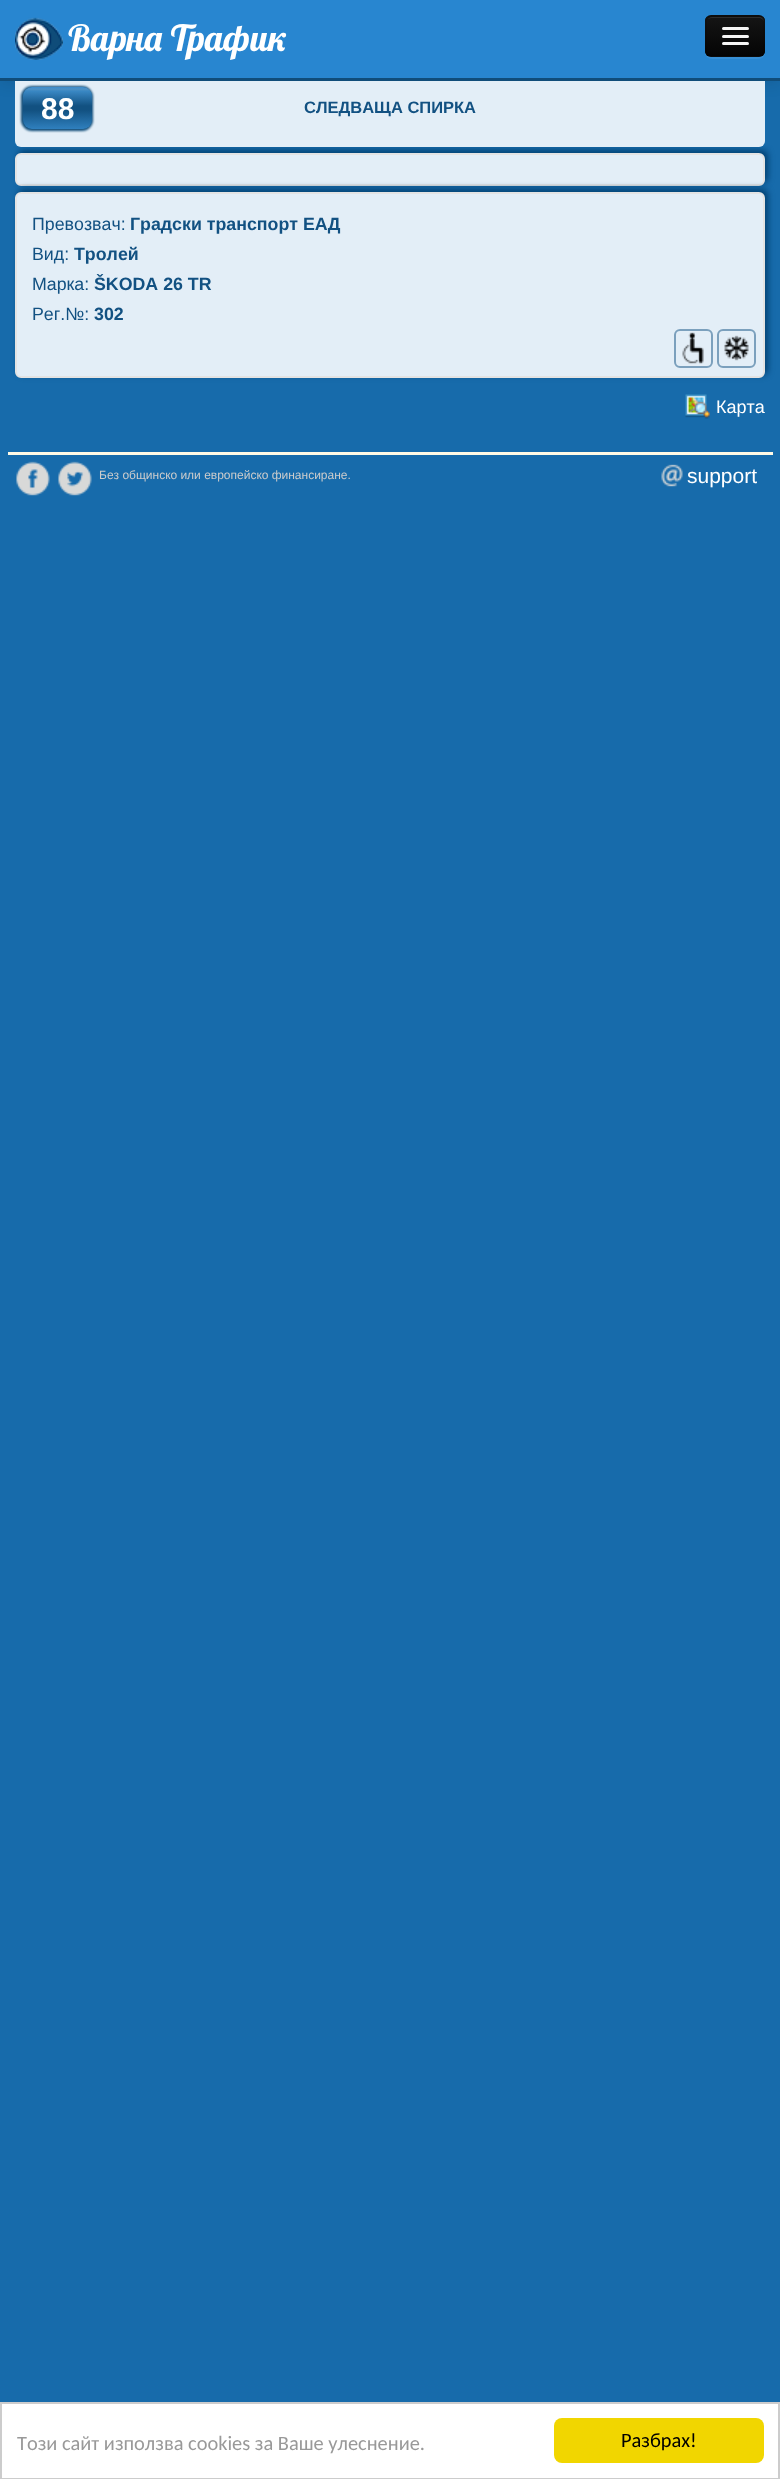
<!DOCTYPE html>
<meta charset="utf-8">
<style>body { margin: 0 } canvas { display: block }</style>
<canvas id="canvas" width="780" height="2479"></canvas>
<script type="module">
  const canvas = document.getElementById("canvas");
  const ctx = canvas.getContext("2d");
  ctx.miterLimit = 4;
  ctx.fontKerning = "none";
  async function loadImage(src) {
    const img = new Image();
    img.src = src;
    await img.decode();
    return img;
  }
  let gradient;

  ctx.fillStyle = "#176bab";
  ctx.fillRect(0, 0, 780, 2479);
  ctx.fillStyle = "rgba(0, 0, 0, 0.1)";
  ctx.filter = "blur(7.5px)";
  ctx.beginPath();
  ctx.rect(0, 2, 780, 81);
  ctx.fill();
  ctx.filter = "none";
  ctx.fillStyle = "#2886d0";
  ctx.fillRect(0, 0, 780, 78);
  ctx.fillStyle = "#104d7a";
  ctx.fillRect(0, 78, 780, 3);
  ctx.drawImage(await loadImage("img1.png"), 15, 17, 48, 43);
  ctx.wordSpacing = "1px";
  ctx.font = "36px Lobster";
  ctx.fillStyle = "#ffffff";
  ctx.fillText("Варна Трафик", 68, 51);
  ctx.fillStyle = "#388fd4";
  ctx.beginPath();
  ctx.moveTo(705, 51);
  ctx.bezierCurveTo(705, 60, 711, 59, 719, 59);
  ctx.lineTo(751, 59);
  ctx.bezierCurveTo(759, 59, 765, 60, 765, 51);
  ctx.bezierCurveTo(765, 54, 762, 57, 759, 57);
  ctx.lineTo(711, 57);
  ctx.bezierCurveTo(708, 57, 705, 54, 705, 51);
  ctx.closePath();
  ctx.fill();
  ctx.fillStyle = "#0e0e0e";
  ctx.beginPath();
  ctx.roundRect(705, 15, 60, 42, 6);
  ctx.fill();
  ctx.save();
  ctx.beginPath();
  ctx.roundRect(705, 15, 60, 42, 6);
  ctx.clip();
  gradient = ctx.createLinearGradient(735, 16, 735, 56);
  gradient.addColorStop(0, "#151515");
  gradient.addColorStop(1, "#040404");
  ctx.fillStyle = gradient;
  ctx.fillRect(705, 17, 60, 39);
  ctx.restore();
  ctx.fillStyle = "#2c2c2c";
  ctx.beginPath();
  ctx.moveTo(711, 18);
  ctx.lineTo(759, 18);
  ctx.bezierCurveTo(761, 18, 764, 20, 764, 22);
  ctx.bezierCurveTo(764, 19, 762, 17, 759, 17);
  ctx.lineTo(712, 17);
  ctx.bezierCurveTo(710, 17, 709, 18, 708, 19);
  ctx.closePath();
  ctx.fill();
  ctx.beginPath();
  ctx.moveTo(762.5, 54.5);
  ctx.bezierCurveTo(761.5, 55.5, 760.5, 56, 759, 56);
  ctx.lineTo(711, 56);
  ctx.bezierCurveTo(709.5, 56, 708.5, 55.5, 707.5, 54.5);
  ctx.strokeStyle = "rgba(0, 0, 0, 0.25)";
  ctx.lineWidth = 1.5;
  ctx.stroke();
  ctx.beginPath();
  ctx.moveTo(707.5, 54.5);
  ctx.bezierCurveTo(706.5, 53.5, 706, 52.5, 706, 51);
  ctx.lineTo(706, 21);
  ctx.bezierCurveTo(706, 19.5, 706.5, 18.5, 707.5, 17.5);
  ctx.bezierCurveTo(708.5, 16.5, 709.5, 16, 711, 16);
  ctx.lineTo(759, 16);
  ctx.bezierCurveTo(760.5, 16, 761.5, 16.5, 762.5, 17.5);
  ctx.bezierCurveTo(763.5, 18.5, 764, 19.5, 764, 21);
  ctx.lineTo(764, 51);
  ctx.bezierCurveTo(764, 52.5, 763.5, 53.5, 762.5, 54.5);
  ctx.strokeStyle = "rgba(0, 0, 0, 0.1)";
  ctx.stroke();
  ctx.fillStyle = "#0b0b0b";
  ctx.beginPath();
  ctx.moveTo(722, 30);
  ctx.bezierCurveTo(720.5, 33, 727.5, 32, 727.5, 32);
  ctx.lineTo(748, 32);
  ctx.bezierCurveTo(749, 31.5, 749.5, 30, 748.5, 29);
  ctx.lineTo(747, 30);
  ctx.bezierCurveTo(745, 30.5, 723, 30.5, 722, 30);
  ctx.closePath();
  ctx.fill();
  ctx.fillStyle = "#f5f5f5";
  ctx.beginPath();
  ctx.roundRect(722, 27, 27, 3, 1.5);
  ctx.fill();
  ctx.fillStyle = "#080808";
  ctx.beginPath();
  ctx.moveTo(722, 37);
  ctx.bezierCurveTo(721.5, 40, 727, 39, 727.5, 39);
  ctx.lineTo(747.5, 39);
  ctx.bezierCurveTo(749, 39, 749.5, 37, 748.5, 36.5);
  ctx.lineTo(747.5, 37.5);
  ctx.bezierCurveTo(746, 38, 722.5, 37.5, 722, 37);
  ctx.closePath();
  ctx.fill();
  ctx.fillStyle = "#f5f5f5";
  ctx.beginPath();
  ctx.roundRect(722, 35, 27, 3, 1.5);
  ctx.fill();
  ctx.beginPath();
  ctx.roundRect(722, 42, 27, 3, 1.5);
  ctx.fill();
  ctx.fillStyle = "#024172";
  ctx.filter = "blur(3px)";
  ctx.beginPath();
  ctx.roundRect(18, 150, 750, 33, 6);
  ctx.fill();
  ctx.filter = "none";
  ctx.fillStyle = "#e3eef7";
  ctx.beginPath();
  ctx.roundRect(15, 81, 750, 66, [0, 0, 6, 6]);
  ctx.fill();
  ctx.fillStyle = "#104d7a";
  ctx.filter = "blur(1px)";
  ctx.beginPath();
  ctx.roundRect(21, 86, 72, 45, 11);
  ctx.fill();
  ctx.filter = "none";
  gradient = ctx.createLinearGradient(57, 87, 57, 129);
  gradient.addColorStop(0, "#3a8ccd");
  gradient.addColorStop(0.05, "#4e91c4");
  gradient.addColorStop(0.1, "#3987c3");
  gradient.addColorStop(0.45, "#125181");
  gradient.addColorStop(0.55, "#125181");
  gradient.addColorStop(1, "#2f80be");
  ctx.fillStyle = gradient;
  ctx.beginPath();
  ctx.roundRect(23, 87, 69, 42, 9);
  ctx.fill();
  ctx.wordSpacing = "0px";
  ctx.font = "bold 30px Liberation Sans";
  ctx.fillStyle = "#ffffff";
  ctx.fillText("88", 41, 119);
  ctx.font = "bold 16.5px Liberation Sans";
  ctx.fillStyle = "#125182";
  ctx.fillText("СЛЕДВАЩА СПИРКА", 304, 113);
  ctx.fillStyle = "#e3eef7";
  ctx.beginPath();
  ctx.roundRect(16, 154, 748, 31, 5);
  ctx.fill();
  ctx.strokeStyle = "#e3e3e3";
  ctx.lineWidth = 2;
  ctx.stroke();
  ctx.fillStyle = "#024172";
  ctx.filter = "blur(3px)";
  ctx.beginPath();
  ctx.roundRect(18, 189, 750, 186, 6);
  ctx.fill();
  ctx.filter = "none";
  ctx.fillStyle = "#e3eef7";
  ctx.beginPath();
  ctx.roundRect(16, 193, 748, 184, 5);
  ctx.fill();
  ctx.stroke();
  ctx.font = "17.8px Liberation Sans";
  ctx.fillStyle = "#125182";
  ctx.fillText("Превозвач:", 32, 230);
  ctx.font = "bold 17.8px Liberation Sans";
  ctx.fillText("Градски транспорт EАД", 130, 230);
  ctx.font = "17.8px Liberation Sans";
  ctx.fillText("Вид:", 32, 260);
  ctx.font = "bold 17.8px Liberation Sans";
  ctx.fillText("Тролей", 74, 260);
  ctx.font = "17.8px Liberation Sans";
  ctx.fillText("Марка:", 32, 290);
  ctx.font = "bold 17.8px Liberation Sans";
  ctx.fillText("ŠKODA 26 TR", 94, 290);
  ctx.font = "17.8px Liberation Sans";
  ctx.fillText("Рег.№:", 32, 320);
  ctx.font = "bold 17.8px Liberation Sans";
  ctx.fillText("302", 94, 320);
  ctx.drawImage(await loadImage("img2.png"), 682, 332, 22, 32);
  ctx.beginPath();
  ctx.roundRect(675, 330, 37, 37, 5);
  ctx.strokeStyle = "#7ba0bd";
  ctx.stroke();
  ctx.drawImage(await loadImage("img3.png"), 724, 335, 25, 26);
  ctx.beginPath();
  ctx.roundRect(718, 330, 37, 37, 5);
  ctx.stroke();
  ctx.drawImage(await loadImage("img4.png"), 685, 394, 25, 25);
  ctx.font = "18px Liberation Sans";
  ctx.fillStyle = "#ffffff";
  ctx.fillText("Карта", 716, 413);
  ctx.fillStyle = "#fffae6";
  ctx.fillRect(8, 452, 765, 3);
  ctx.drawImage(await loadImage("img5.png"), 16, 461, 34, 35);
  ctx.drawImage(await loadImage("img6.png"), 58, 461, 34, 35);
  ctx.font = "12px Liberation Sans";
  ctx.fillStyle = "#cccccc";
  ctx.fillText("Без общинско или европейско финансиране.", 99, 479);
  ctx.drawImage(await loadImage("img7.png"), 661, 464, 22, 23);
  ctx.font = "21px Liberation Sans";
  ctx.fillStyle = "#ffffff";
  ctx.fillText("support", 687, 483);
  ctx.beginPath();
  ctx.rect(1, 2403, 778, 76);
  ctx.fill();
  ctx.strokeStyle = "#cccccc";
  ctx.stroke();
  ctx.font = "20.4px Carlito";
  ctx.fillStyle = "#999999";
  ctx.fillText("Този сайт използва cookies за Ваше улеснение.", 17, 2450);
  ctx.fillStyle = "#f1d600";
  ctx.beginPath();
  ctx.roundRect(554, 2418, 210, 45, 8);
  ctx.fill();
  ctx.fillStyle = "#000000";
  ctx.fillText("Разбрах!", 621, 2447);
</script>
